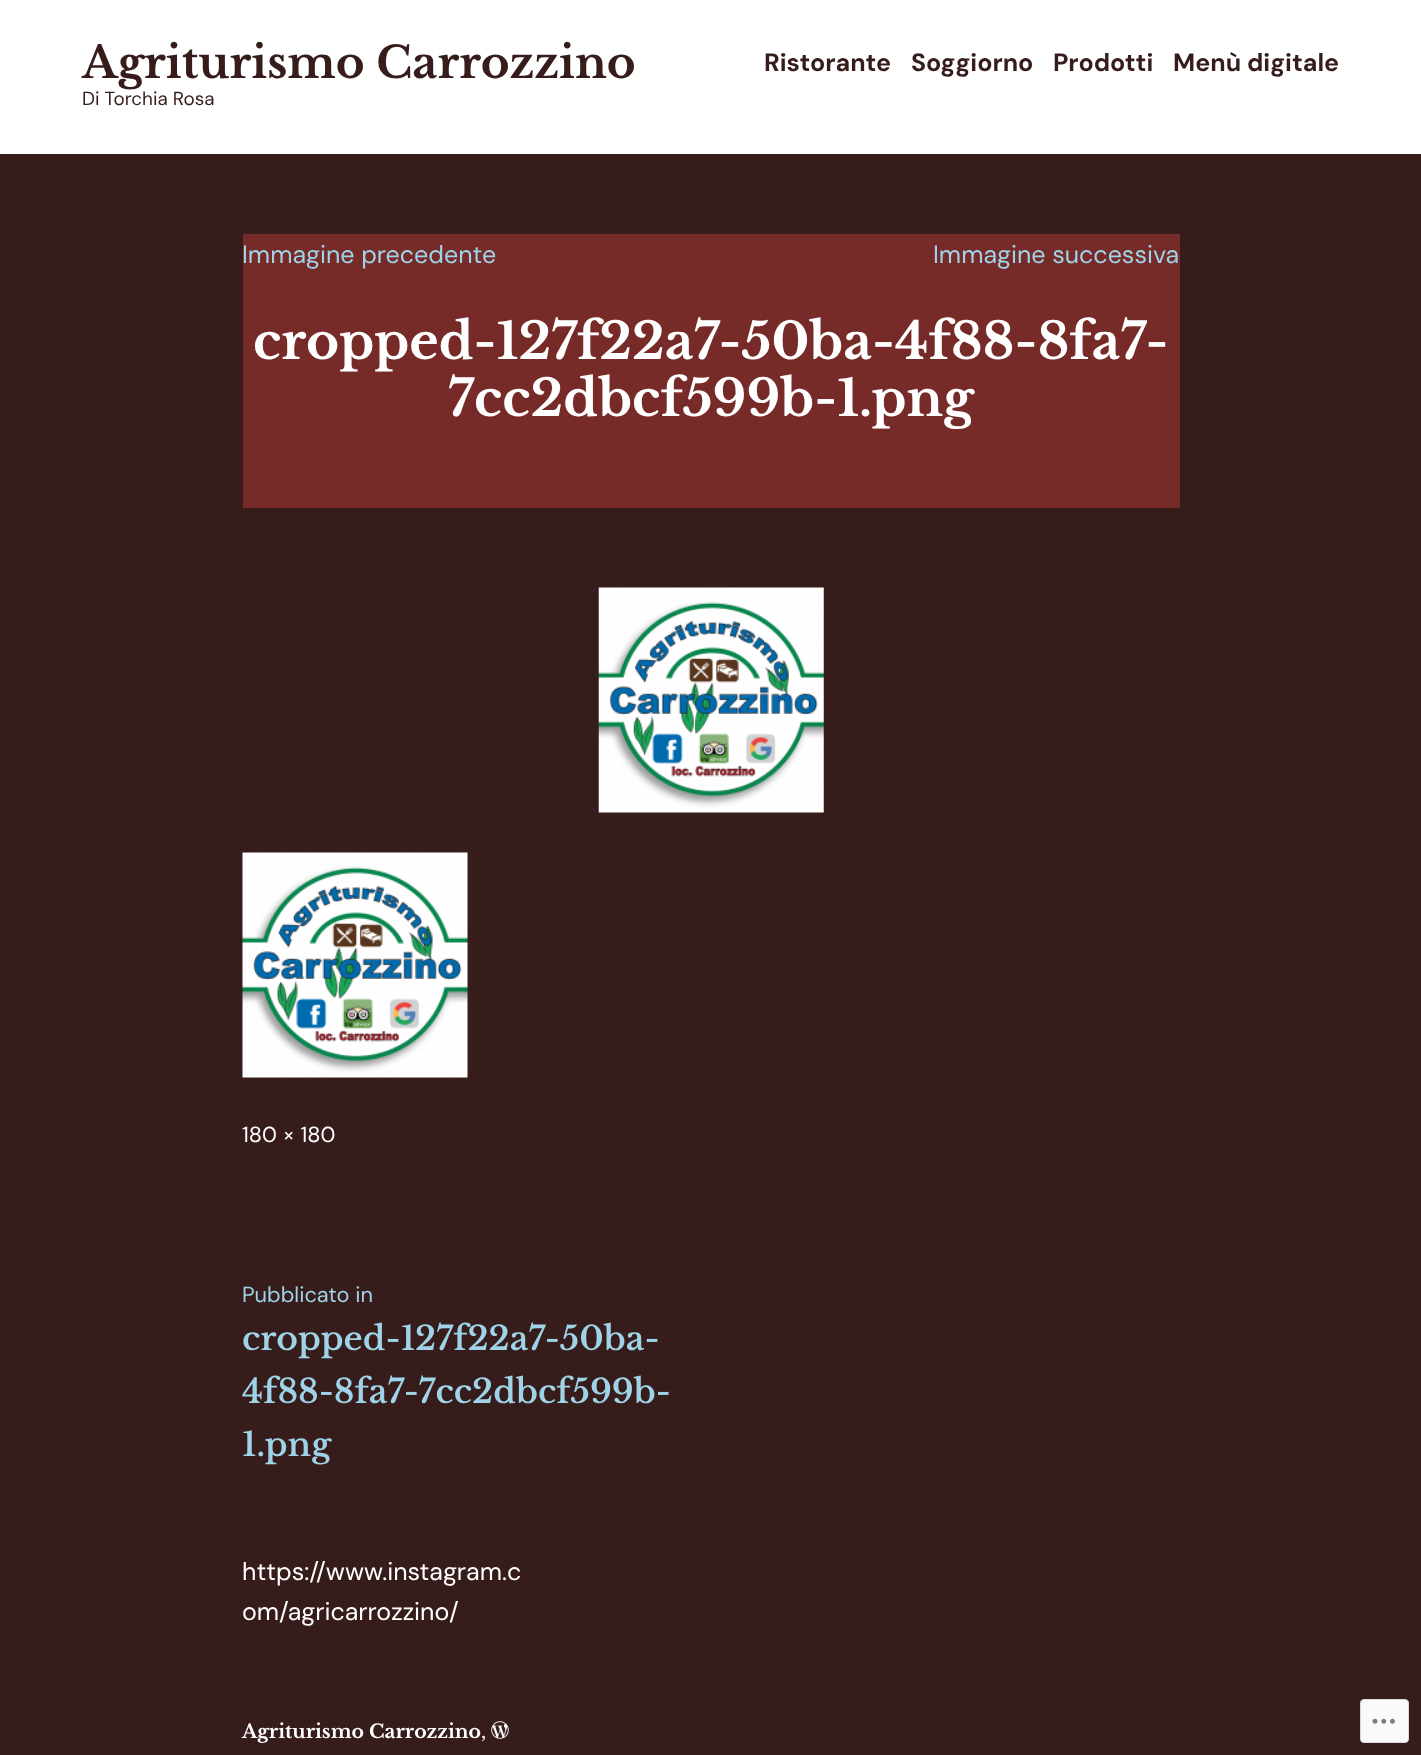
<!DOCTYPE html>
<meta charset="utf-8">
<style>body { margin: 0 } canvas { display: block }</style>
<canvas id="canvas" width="1421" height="1755"></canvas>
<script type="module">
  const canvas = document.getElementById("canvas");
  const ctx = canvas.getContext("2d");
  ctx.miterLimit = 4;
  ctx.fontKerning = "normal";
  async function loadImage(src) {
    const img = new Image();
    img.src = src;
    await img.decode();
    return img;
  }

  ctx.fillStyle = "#361c1b";
  ctx.fillRect(0, 0, 1421, 1755);
  ctx.fillStyle = "#ffffff";
  ctx.fillRect(0, 0, 1421, 154);
  ctx.font = "bold 43.75px Libre Baskerville";
  ctx.fillStyle = "#361c1b";
  ctx.fillText("Agriturismo Carrozzino", 82, 78);
  ctx.font = "bold 25px DM Sans";
  ctx.fillText("Ristorante", 764, 71);
  ctx.fillText("Soggiorno", 911, 71);
  ctx.fillText("Prodotti", 1053, 71);
  ctx.fillText("Menù digitale", 1173, 71);
  ctx.font = "18.9px DM Sans";
  ctx.fillText("Di Torchia Rosa", 82, 105);
  ctx.fillStyle = "#772b28";
  ctx.fillRect(243, 234, 937, 274);
  ctx.font = "25px DM Sans";
  ctx.fillStyle = "#9fd3e8";
  ctx.fillText("Immagine precedente", 242, 263);
  ctx.fillText("Immagine successiva", 933, 263);
  ctx.font = "bold 50.25px Libre Baskerville";
  ctx.fillStyle = "#ffffff";
  ctx.fillText("cropped-127f22a7-50ba-4f88-8fa7-", 253, 359);
  ctx.fillText("7cc2dbcf599b-1.png", 448, 416);
  ctx.drawImage(await loadImage("img1.png"), 598, 587, 226, 226);
  ctx.drawImage(await loadImage("img2.png"), 242, 852, 226, 226);
  ctx.font = "21.75px DM Sans";
  ctx.fillText("180 × 180", 242, 1142);
  ctx.fillStyle = "#9fd3e8";
  ctx.fillText("Pubblicato in", 242, 1302);
  ctx.font = "600 33px Libre Baskerville";
  ctx.fillText("cropped-127f22a7-50ba-", 242, 1350);
  ctx.fillText("4f88-8fa7-7cc2dbcf599b-", 242, 1403);
  ctx.fillText("1.png", 242, 1456);
  ctx.font = "25px DM Sans";
  ctx.fillStyle = "#ffffff";
  ctx.fillText("https://www.instagram.c", 242, 1580);
  ctx.fillText("om/agricarrozzino/", 242, 1620);
  ctx.font = "bold 18.9px Libre Baskerville";
  ctx.fillText("Agriturismo Carrozzino", 242, 1738);
  ctx.font = "18.9px Libre Baskerville";
  ctx.fillText(",", 481, 1738);
  ctx.drawImage(await loadImage("img3.png"), 491, 1721, 18, 18);
  ctx.fillStyle = "#fbfafa";
  ctx.beginPath();
  ctx.roundRect(1360.5, 1699.5, 48, 43, 3.5);
  ctx.fill();
  ctx.strokeStyle = "#d9d8da";
  ctx.stroke();
  ctx.drawImage(await loadImage("img4.png"), 1372, 1718, 23, 6);
</script>
